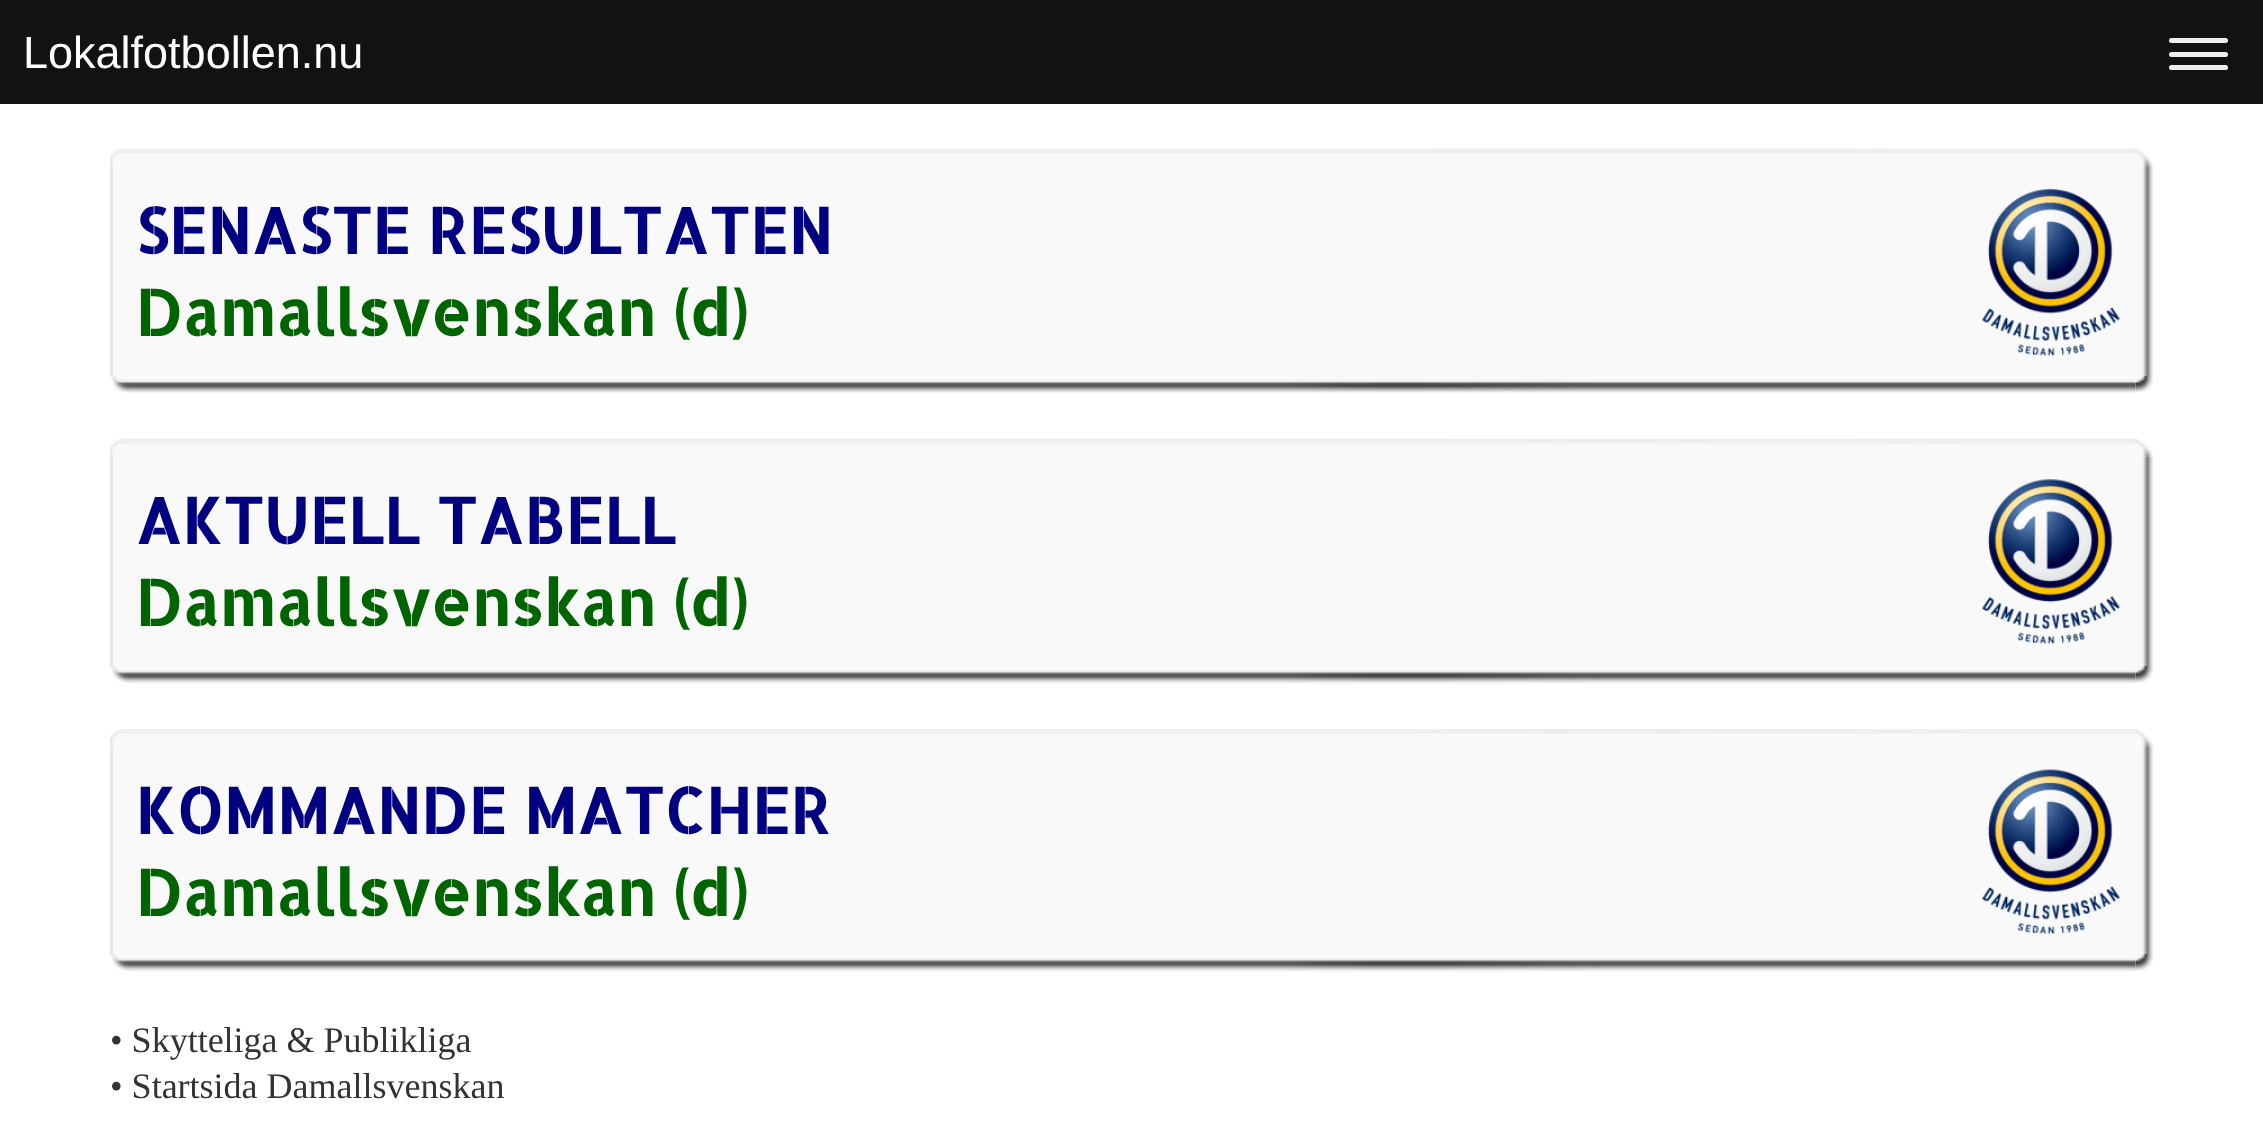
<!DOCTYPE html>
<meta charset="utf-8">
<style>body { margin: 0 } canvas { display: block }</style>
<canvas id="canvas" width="2263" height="1126"></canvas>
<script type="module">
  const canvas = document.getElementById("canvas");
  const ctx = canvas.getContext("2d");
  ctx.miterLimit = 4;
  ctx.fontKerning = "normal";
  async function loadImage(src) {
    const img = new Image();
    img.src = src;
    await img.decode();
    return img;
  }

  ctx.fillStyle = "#ffffff";
  ctx.fillRect(0, 0, 2263, 1126);
  ctx.fillStyle = "#121212";
  ctx.fillRect(0, 0, 2263, 104);
  ctx.font = "45px Liberation Sans";
  ctx.fillStyle = "#ffffff";
  ctx.fillText("Lokalfotbollen.nu", 23, 68);
  ctx.fillStyle = "#eeeeee";
  ctx.beginPath();
  ctx.roundRect(2169, 38, 59, 5, 2.5);
  ctx.fill();
  ctx.beginPath();
  ctx.roundRect(2169, 52, 59, 5, 2.5);
  ctx.fill();
  ctx.beginPath();
  ctx.roundRect(2169, 65, 59, 5, 2.5);
  ctx.fill();
  ctx.drawImage(await loadImage("img1.png"), 2135, 148, 18, 19);
  ctx.drawImage(await loadImage("img2.png"), 110, 148, 2028, 19);
  ctx.drawImage(await loadImage("img3.png"), 2142, 166, 11, 210);
  ctx.fillStyle = "#e6e6e6";
  ctx.fillRect(110, 166, 3, 210);
  ctx.fillStyle = "#f9f9f9";
  ctx.fillRect(113, 167, 2029, 209);
  ctx.font = "bold 63px Allerta Stencil";
  ctx.fillStyle = "#000080";
  ctx.fillText("SENASTE RESULTATEN", 135, 254);
  ctx.fillStyle = "#006400";
  ctx.fillText("Damallsvenskan (d)", 135, 336);
  ctx.drawImage(await loadImage("img4.png"), 1982, 189, 138, 167);
  ctx.drawImage(await loadImage("img5.png"), 2134, 375, 19, 17);
  ctx.drawImage(await loadImage("img6.png"), 110, 376, 2026, 18);
  ctx.drawImage(await loadImage("img7.png"), 2135, 439, 18, 18);
  ctx.drawImage(await loadImage("img8.png"), 110, 438, 2028, 19);
  ctx.drawImage(await loadImage("img9.png"), 2142, 456, 11, 210);
  ctx.fillStyle = "#e6e6e6";
  ctx.fillRect(110, 457, 3, 209);
  ctx.fillStyle = "#f9f9f9";
  ctx.fillRect(113, 457, 2029, 209);
  ctx.fillStyle = "#000080";
  ctx.fillText("AKTUELL TABELL", 135, 544);
  ctx.fillStyle = "#006400";
  ctx.fillText("Damallsvenskan (d)", 135, 626);
  ctx.drawImage(await loadImage("img10.png"), 1982, 479, 138, 165);
  ctx.drawImage(await loadImage("img11.png"), 2134, 666, 19, 16);
  ctx.drawImage(await loadImage("img12.png"), 110, 666, 2026, 18);
  ctx.drawImage(await loadImage("img13.png"), 2135, 729, 18, 18);
  ctx.drawImage(await loadImage("img14.png"), 110, 729, 2028, 18);
  ctx.drawImage(await loadImage("img15.png"), 2142, 747, 11, 207);
  ctx.fillStyle = "#e6e6e6";
  ctx.fillRect(110, 747, 3, 207);
  ctx.fillStyle = "#f9f9f9";
  ctx.fillRect(113, 747, 2029, 207);
  ctx.fillStyle = "#000080";
  ctx.fillText("KOMMANDE MATCHER", 135, 834);
  ctx.fillStyle = "#006400";
  ctx.fillText("Damallsvenskan (d)", 135, 916);
  ctx.drawImage(await loadImage("img16.png"), 1982, 769, 138, 165);
  ctx.drawImage(await loadImage("img11.png"), 2134, 954, 19, 16);
  ctx.drawImage(await loadImage("img12.png"), 110, 954, 2026, 18);
  ctx.font = "36px Liberation Serif";
  ctx.fillStyle = "#333333";
  ctx.fillText("• Skytteliga & Publikliga", 110, 1052);
  ctx.fillText("• Startsida Damallsvenskan", 110, 1098);
</script>
